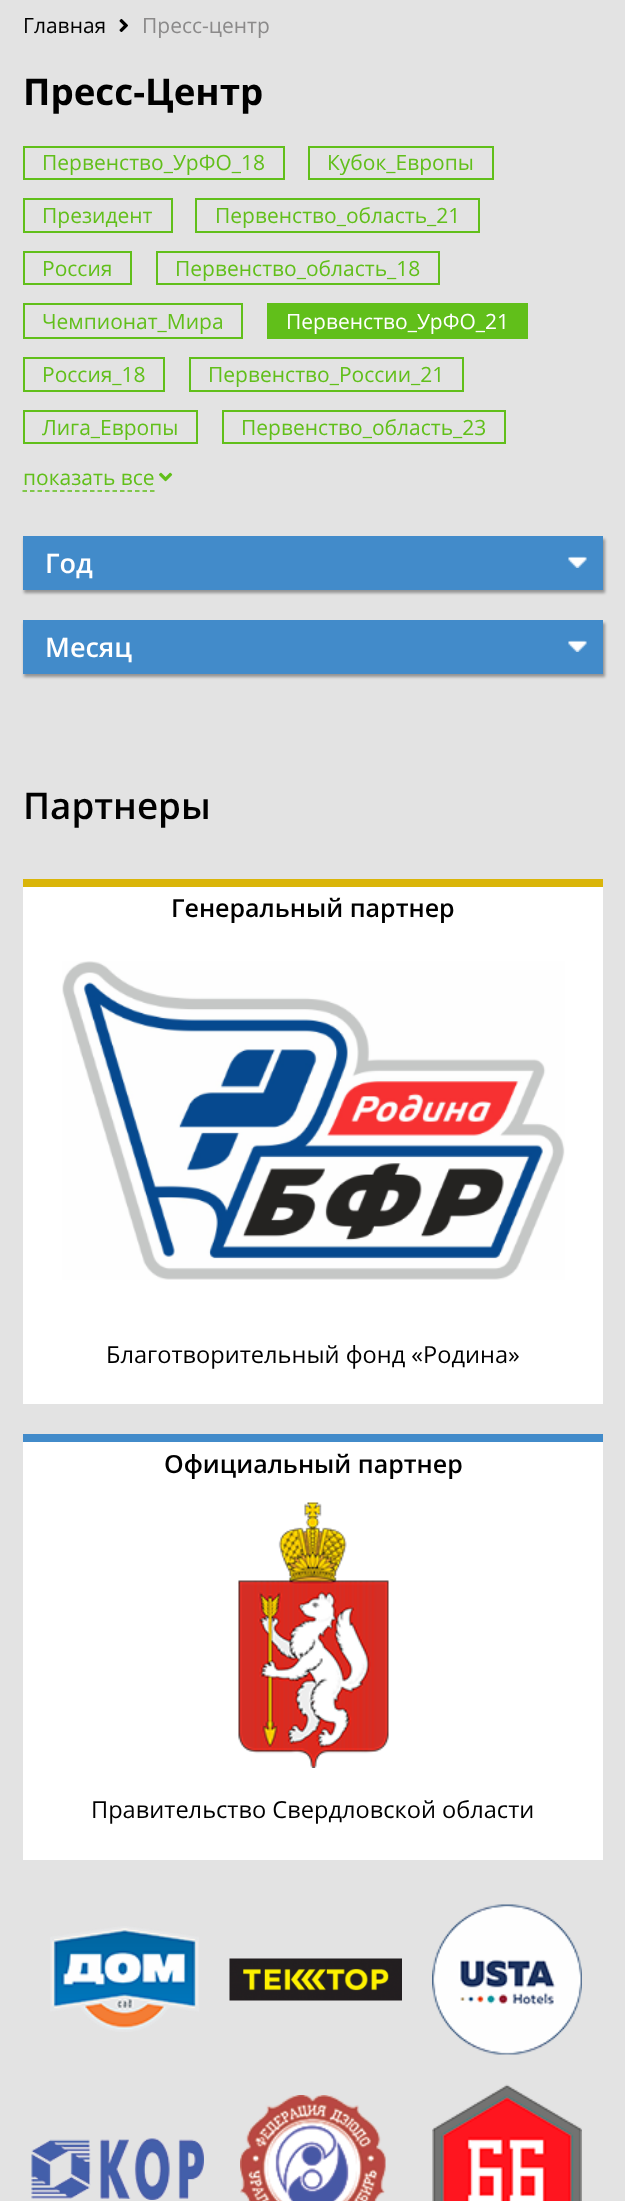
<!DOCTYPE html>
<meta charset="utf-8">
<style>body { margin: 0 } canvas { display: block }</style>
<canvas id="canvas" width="625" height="2201"></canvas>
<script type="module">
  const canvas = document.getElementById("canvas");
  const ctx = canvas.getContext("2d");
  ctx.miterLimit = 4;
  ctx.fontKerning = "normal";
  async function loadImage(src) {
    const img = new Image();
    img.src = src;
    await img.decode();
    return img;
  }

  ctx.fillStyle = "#e3e3e3";
  ctx.fillRect(0, 0, 625, 2201);
  ctx.font = "21px Open Sans";
  ctx.fillStyle = "#000000";
  ctx.fillText("Главная", 23, 33);
  ctx.drawImage(await loadImage("img1.png"), 119, 18, 9, 14);
  ctx.fillStyle = "#8b8a8a";
  ctx.fillText("Пресс-центр", 142, 33);
  ctx.font = "bold 36.75px Open Sans";
  ctx.fillStyle = "#000000";
  ctx.fillText("Пресс-Центр", 23, 105);
  ctx.strokeStyle = "#61bf1a";
  ctx.lineWidth = 2;
  ctx.strokeRect(24, 147, 260, 32);
  ctx.font = "21px Open Sans";
  ctx.fillStyle = "#61bf1a";
  ctx.fillText("Первенство_УрФО_18", 42, 170);
  ctx.strokeRect(309, 147, 184, 32);
  ctx.fillText("Кубок_Европы", 327, 170);
  ctx.strokeRect(24, 199, 148, 33);
  ctx.fillText("Президент", 42, 223);
  ctx.strokeRect(196, 199, 283, 33);
  ctx.fillText("Первенство_область_21", 215, 223);
  ctx.strokeRect(24, 252, 107, 32);
  ctx.fillText("Россия", 42, 276);
  ctx.strokeRect(157, 252, 282, 32);
  ctx.fillText("Первенство_область_18", 175, 276);
  ctx.strokeRect(24, 304, 218, 34);
  ctx.fillText("Чемпионат_Мира", 42, 329);
  ctx.fillRect(267, 303, 261, 36);
  ctx.fillStyle = "#ffffff";
  ctx.fillText("Первенство_УрФО_21", 286, 329);
  ctx.strokeRect(24, 358, 140, 33);
  ctx.fillStyle = "#61bf1a";
  ctx.fillText("Россия_18", 42, 382);
  ctx.strokeRect(190, 358, 273, 33);
  ctx.fillText("Первенство_России_21", 208, 382);
  ctx.strokeRect(24, 411, 173, 32);
  ctx.fillText("Лига_Европы", 42, 435);
  ctx.strokeRect(223, 411, 282, 32);
  ctx.fillText("Первенство_область_23", 241, 435);
  ctx.fillText("показать все", 23, 485);
  ctx.beginPath();
  ctx.moveTo(22.5, 491);
  ctx.lineTo(154.5, 491);
  ctx.lineWidth = 1.5;
  ctx.setLineDash([4.5, 3]);
  ctx.stroke();
  ctx.drawImage(await loadImage("img2.png"), 159, 472, 14, 10);
  ctx.fillStyle = "rgba(0, 0, 0, 0.35)";
  ctx.filter = "blur(1.5px)";
  ctx.beginPath();
  ctx.rect(24, 539, 581, 54);
  ctx.fill();
  ctx.filter = "none";
  ctx.fillStyle = "#428bca";
  ctx.fillRect(23, 536, 580, 54);
  ctx.font = "600 27px Open Sans";
  ctx.fillStyle = "#ffffff";
  ctx.fillText("Год", 45, 573);
  ctx.drawImage(await loadImage("img3.png"), 568, 556, 19, 12);
  ctx.fillStyle = "rgba(0, 0, 0, 0.35)";
  ctx.filter = "blur(1.5px)";
  ctx.beginPath();
  ctx.rect(24, 623, 581, 54);
  ctx.fill();
  ctx.filter = "none";
  ctx.fillStyle = "#428bca";
  ctx.fillRect(23, 620, 580, 54);
  ctx.fillStyle = "#ffffff";
  ctx.fillText("Месяц", 45, 657);
  ctx.drawImage(await loadImage("img3.png"), 568, 640, 19, 12);
  ctx.font = "600 36.75px Open Sans";
  ctx.fillStyle = "#000000";
  ctx.fillText("Партнеры", 23, 819);
  ctx.fillStyle = "#ffffff";
  ctx.fillRect(23, 887, 580, 517);
  ctx.fillStyle = "#dab509";
  ctx.fillRect(23, 879, 580, 8);
  ctx.font = "600 25px Open Sans";
  ctx.fillStyle = "#000000";
  ctx.fillText("Генеральный партнер", 171, 917);
  ctx.drawImage(await loadImage("img4.png"), 62, 961, 503, 319);
  ctx.font = "23.6px Open Sans";
  ctx.fillText("Благотворительный фонд «Родина»", 106, 1363);
  ctx.fillStyle = "#ffffff";
  ctx.fillRect(23, 1442, 580, 418);
  ctx.fillStyle = "#428bca";
  ctx.fillRect(23, 1434, 580, 8);
  ctx.font = "600 25px Open Sans";
  ctx.fillStyle = "#000000";
  ctx.fillText("Официальный партнер", 164, 1473);
  ctx.drawImage(await loadImage("img5.png"), 238, 1502, 151, 266);
  ctx.font = "23.6px Open Sans";
  ctx.fillText("Правительство Свердловской области", 91, 1818);
  ctx.drawImage(await loadImage("img6.png"), 50, 1926, 149, 106);
  ctx.drawImage(await loadImage("img7.png"), 229, 1958, 173, 43);
  ctx.drawImage(await loadImage("img8.png"), 432, 1904, 150, 151);
  ctx.drawImage(await loadImage("img9.png"), 31, 2138, 173, 62);
  ctx.drawImage(await loadImage("img10.png"), 240, 2095, 146, 106);
  ctx.drawImage(await loadImage("img11.png"), 432, 2084, 150, 117);
</script>
